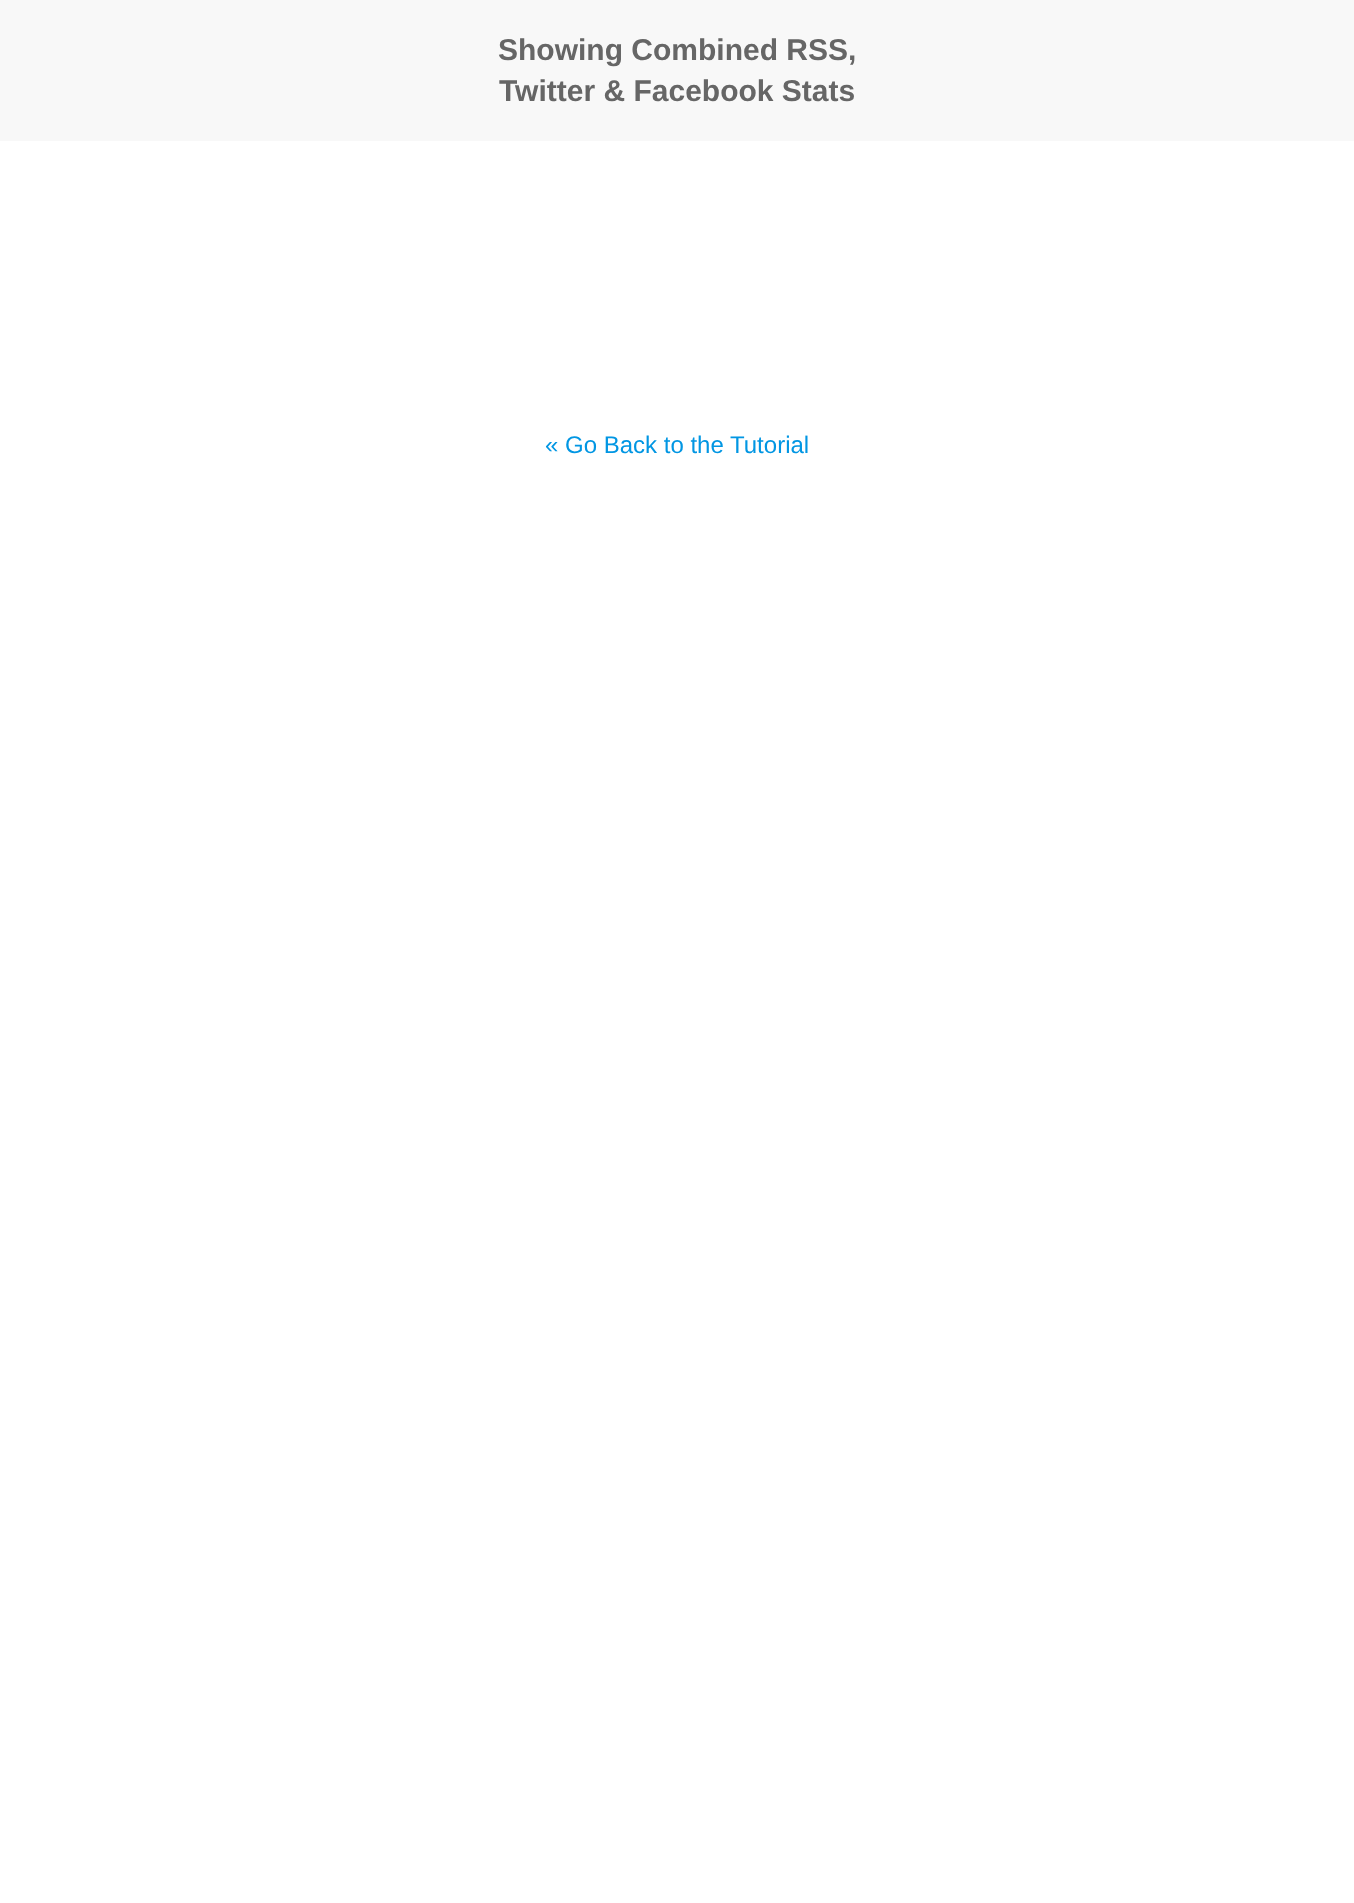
<!DOCTYPE html>
<meta charset="utf-8">
<style>body { margin: 0 } canvas { display: block }</style>
<canvas id="canvas" width="1354" height="1903"></canvas>
<script type="module">
  const canvas = document.getElementById("canvas");
  const ctx = canvas.getContext("2d");
  ctx.miterLimit = 4;
  ctx.fontKerning = "normal";

  ctx.fillStyle = "#ffffff";
  ctx.fillRect(0, 0, 1354, 1903);
  ctx.fillStyle = "#f8f8f8";
  ctx.fillRect(0, 0, 1354, 141);
  ctx.font = "bold 30px Liberation Sans";
  ctx.fillStyle = "#666666";
  ctx.fillText("Showing Combined RSS,", 498, 60);
  ctx.fillText("Twitter & Facebook Stats", 499, 101);
  ctx.font = "24px Liberation Sans";
  ctx.fillStyle = "#0196e3";
  ctx.fillText("« Go Back to the Tutorial", 545, 453);
</script>
